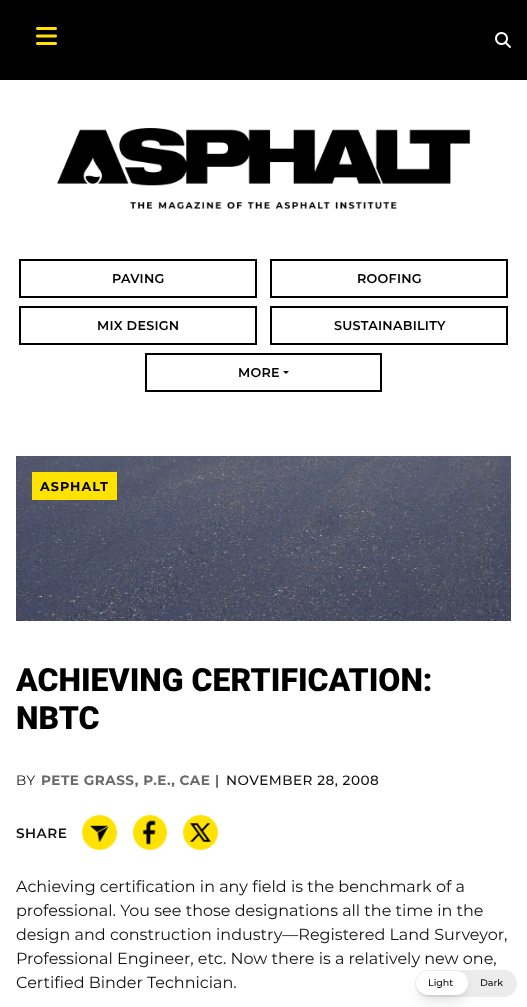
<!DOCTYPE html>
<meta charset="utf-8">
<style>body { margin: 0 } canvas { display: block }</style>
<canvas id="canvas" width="527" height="1007"></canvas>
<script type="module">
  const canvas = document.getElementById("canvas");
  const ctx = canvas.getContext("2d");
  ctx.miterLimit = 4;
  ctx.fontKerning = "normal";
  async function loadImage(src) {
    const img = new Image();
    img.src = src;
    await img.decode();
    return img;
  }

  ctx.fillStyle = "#ffffff";
  ctx.fillRect(0, 0, 527, 1007);
  ctx.fillStyle = "#000000";
  ctx.fillRect(0, 0, 527, 80);
  ctx.drawImage(await loadImage("img1.png"), 36, 27, 21, 18);
  ctx.drawImage(await loadImage("img2.png"), 495, 32, 16, 16);
  ctx.drawImage(await loadImage("img3.png"), 57, 128, 413, 82);
  ctx.strokeStyle = "#000000";
  ctx.lineWidth = 2;
  ctx.strokeRect(20, 260, 236, 37);
  ctx.letterSpacing = "0.25px";
  ctx.font = "600 12.75px Montserrat";
  ctx.fillText("PAVING", 112, 283);
  ctx.strokeRect(271, 260, 236, 37);
  ctx.fillText("ROOFING", 357, 283);
  ctx.strokeRect(20, 307, 236, 37);
  ctx.fillText("MIX DESIGN", 97, 330);
  ctx.strokeRect(271, 307, 236, 37);
  ctx.fillText("SUSTAINABILITY", 334, 330);
  ctx.strokeRect(146, 354, 235, 37);
  ctx.fillText("MORE", 238, 377);
  ctx.beginPath();
  ctx.moveTo(283, 371);
  ctx.lineTo(289, 371);
  ctx.lineTo(286, 374);
  ctx.closePath();
  ctx.fill();
  ctx.drawImage(await loadImage("img4.png"), 16, 456, 495, 165);
  ctx.fillStyle = "#ffe200";
  ctx.fillRect(32, 472, 85, 28);
  ctx.letterSpacing = "1px";
  ctx.font = "bold 12.75px Montserrat";
  ctx.fillStyle = "#000000";
  ctx.fillText("ASPHALT", 40, 491);
  ctx.letterSpacing = "0px";
  ctx.font = "900 32px Roboto";
  ctx.fillText("ACHIEVING CERTIFICATION:", 16, 691);
  ctx.fillText("NBTC", 16, 729);
  ctx.letterSpacing = "0.5px";
  ctx.font = "13.6px Montserrat";
  ctx.fillStyle = "#111111";
  ctx.fillText("BY", 16, 785);
  ctx.font = "bold 13.6px Montserrat";
  ctx.fillStyle = "#696969";
  ctx.fillText("PETE GRASS, P.E., CAE", 41, 785);
  ctx.font = "500 13.6px Montserrat";
  ctx.fillStyle = "#111111";
  ctx.fillText("|", 215, 785);
  ctx.fillText("NOVEMBER 28, 2008", 226, 785);
  ctx.font = "600 13.6px Montserrat";
  ctx.fillText("SHARE", 16, 838);
  ctx.drawImage(await loadImage("img5.png"), 82, 815, 36, 36);
  ctx.drawImage(await loadImage("img6.png"), 133, 815, 35, 36);
  ctx.drawImage(await loadImage("img7.png"), 183, 815, 36, 36);
  ctx.letterSpacing = "0px";
  ctx.font = "16px Montserrat";
  ctx.fillText("Achieving certification in any field is the benchmark of a", 16, 892);
  ctx.fillText("professional. You see those designations all the time in the", 16, 916);
  ctx.fillText("design and construction industry—Registered Land Surveyor,", 16, 940);
  ctx.fillText("Professional Engineer, etc. Now there is a relatively new one,", 16, 964);
  ctx.fillText("Certified Binder Technician.", 16, 988);
  ctx.fillStyle = "#ececec";
  ctx.beginPath();
  ctx.roundRect(415, 970, 102, 27, 13.5);
  ctx.fill();
  ctx.fillStyle = "rgba(0, 0, 0, 0.1)";
  ctx.filter = "blur(3px)";
  ctx.beginPath();
  ctx.roundRect(420, 979, 44, 16, 8);
  ctx.fill();
  ctx.filter = "none";
  ctx.filter = "blur(7.5px)";
  ctx.beginPath();
  ctx.roundRect(419, 984, 46, 18, 9);
  ctx.fill();
  ctx.filter = "none";
  ctx.fillStyle = "#ffffff";
  ctx.beginPath();
  ctx.roundRect(416, 971, 52, 24, 12);
  ctx.fill();
  ctx.font = "500 9.5px Montserrat";
  ctx.fillStyle = "#111111";
  ctx.fillText("Light", 428, 986);
  ctx.fillText("Dark", 480, 986);
</script>
